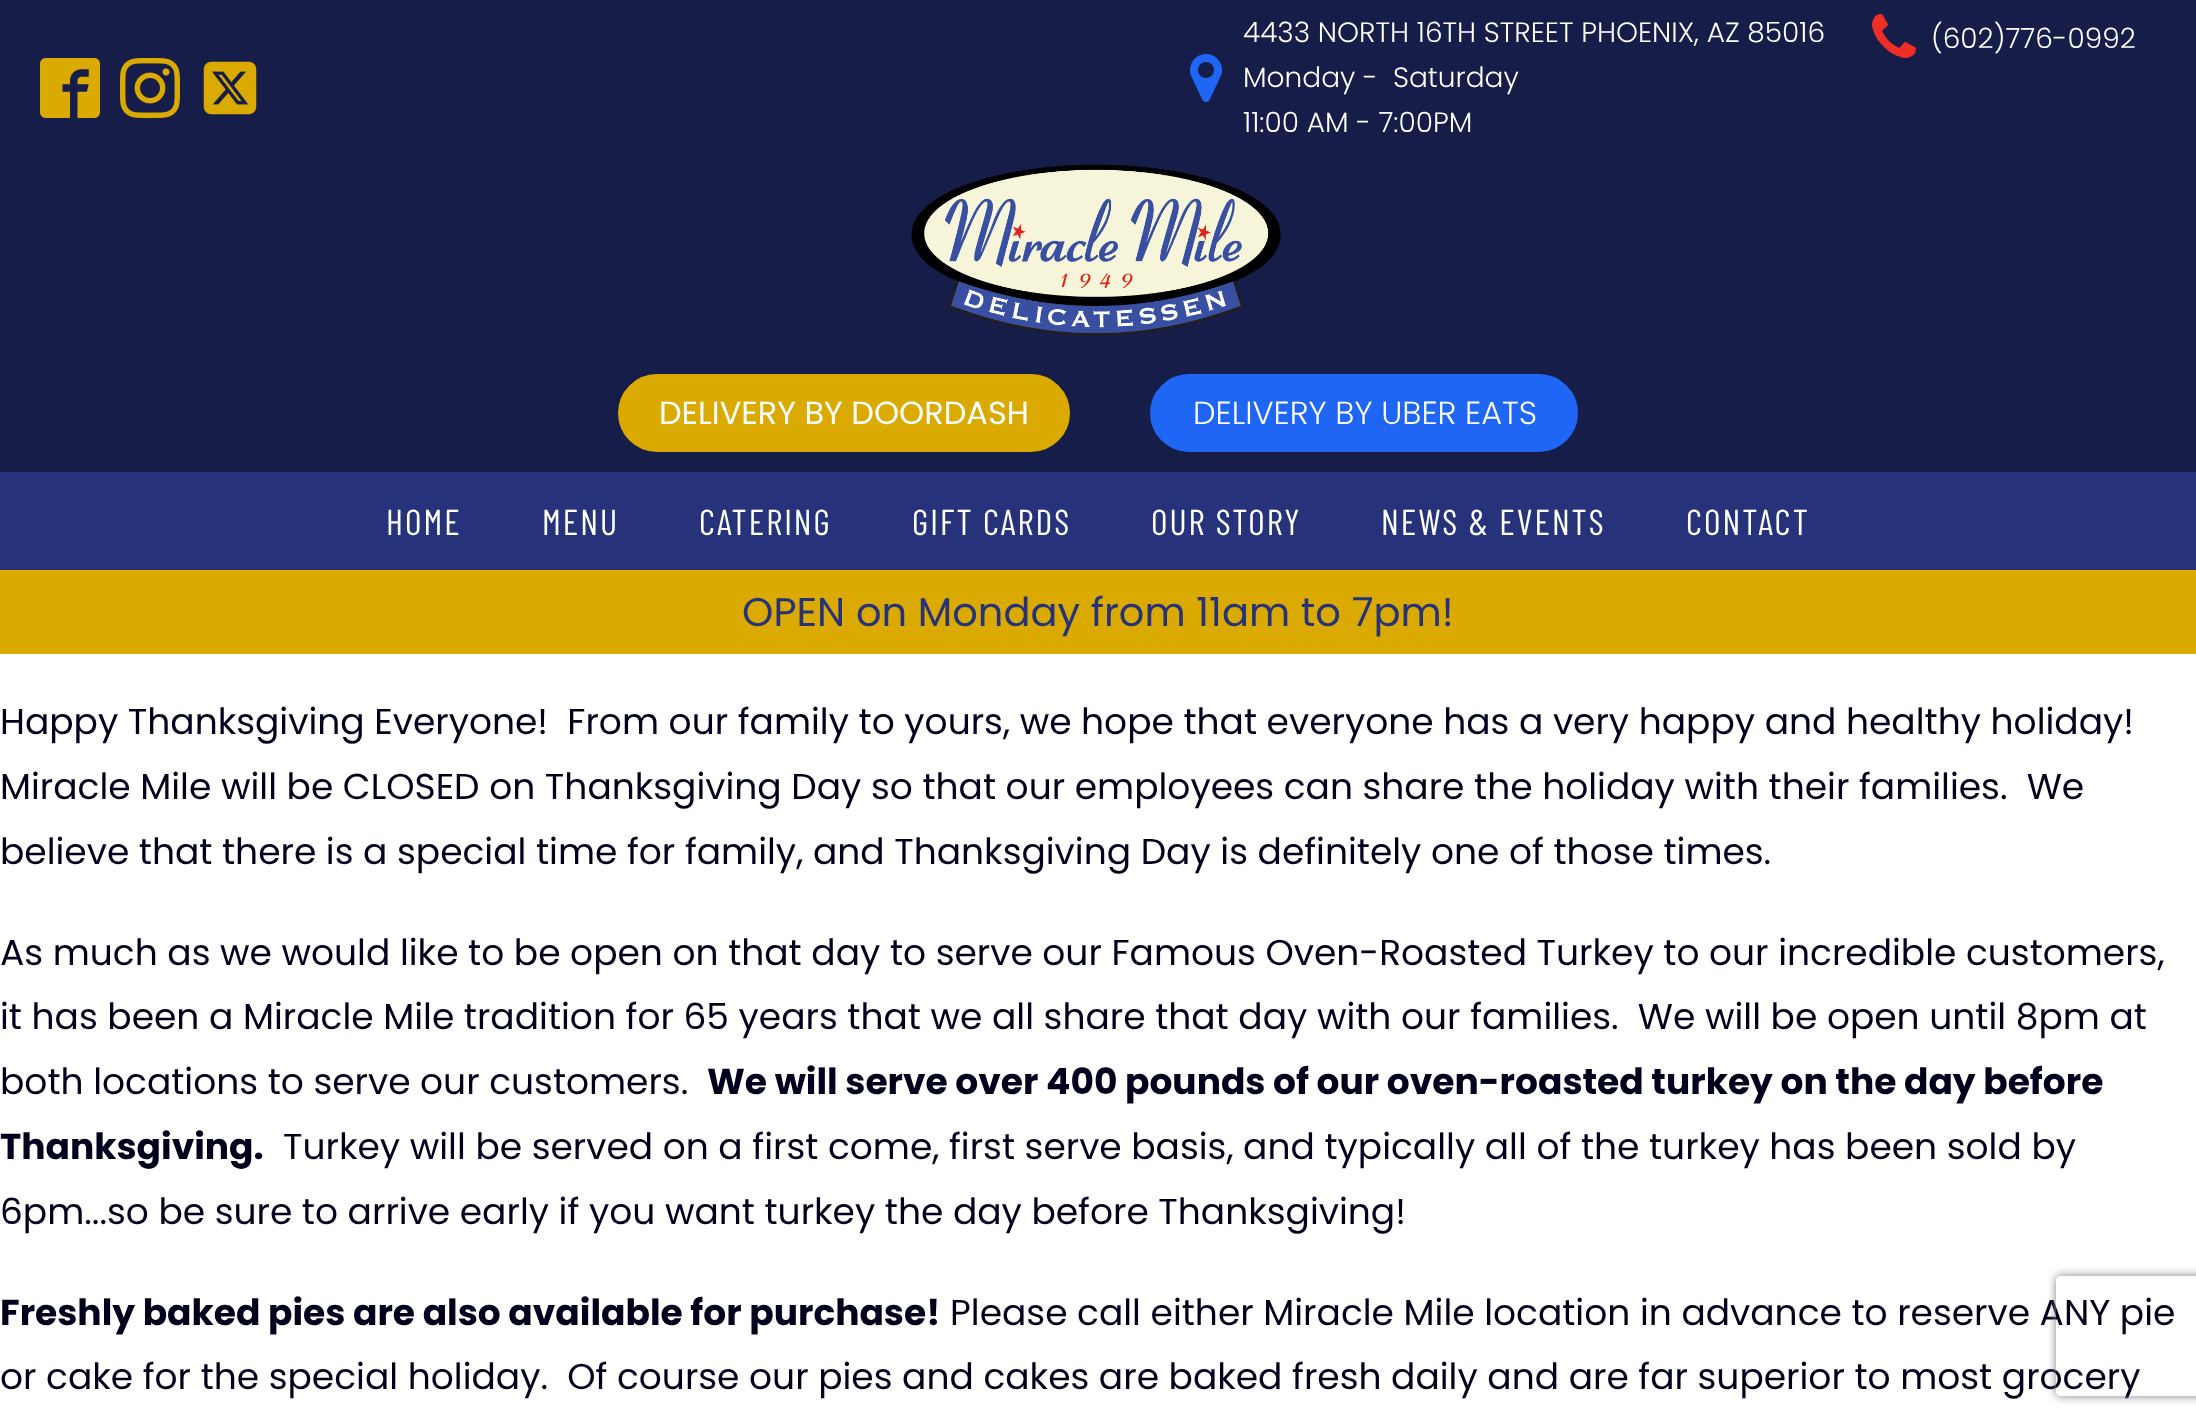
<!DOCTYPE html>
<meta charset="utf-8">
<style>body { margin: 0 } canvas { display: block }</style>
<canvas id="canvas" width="2196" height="1423"></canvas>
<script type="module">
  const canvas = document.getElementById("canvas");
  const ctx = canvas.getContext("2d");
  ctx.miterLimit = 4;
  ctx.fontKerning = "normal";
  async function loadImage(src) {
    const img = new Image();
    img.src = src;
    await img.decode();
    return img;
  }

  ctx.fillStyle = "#ffffff";
  ctx.fillRect(0, 0, 2196, 1423);
  ctx.fillStyle = "#151d48";
  ctx.fillRect(0, 0, 2196, 472);
  ctx.drawImage(await loadImage("img1.png"), 40, 58, 60, 60);
  ctx.drawImage(await loadImage("img2.png"), 120, 58, 60, 60);
  ctx.drawImage(await loadImage("img3.png"), 203, 61, 54, 54);
  ctx.drawImage(await loadImage("img4.png"), 1190, 54, 32, 48);
  ctx.font = "300 28px Poppins";
  ctx.fillStyle = "#ffffff";
  ctx.fillText("4433 NORTH 16TH STREET PHOENIX, AZ 85016", 1243, 42);
  ctx.fillText("Monday -  Saturday", 1243, 87);
  ctx.fillText("11:00 AM - 7:00PM", 1243, 132);
  ctx.drawImage(await loadImage("img5.png"), 1872, 14, 44, 44);
  ctx.fillText("(602)776-0992", 1931, 48);
  ctx.drawImage(await loadImage("img6.png"), 911, 164, 370, 172);
  ctx.fillStyle = "#daaa00";
  ctx.beginPath();
  ctx.roundRect(619, 375, 450, 76, 38);
  ctx.fill();
  ctx.strokeStyle = "#daaa00";
  ctx.lineWidth = 2;
  ctx.stroke();
  ctx.font = "32px Poppins";
  ctx.fillStyle = "#ffffff";
  ctx.fillText("DELIVERY BY DOORDASH", 659, 424);
  ctx.fillStyle = "#1f66f4";
  ctx.beginPath();
  ctx.roundRect(1151, 375, 426, 76, 38);
  ctx.fill();
  ctx.strokeStyle = "#1f66f4";
  ctx.stroke();
  ctx.font = "300 32px Poppins";
  ctx.fillStyle = "#ffffff";
  ctx.fillText("DELIVERY BY UBER EATS", 1193, 424);
  ctx.fillStyle = "#26337a";
  ctx.fillRect(0, 472, 2196, 98);
  ctx.letterSpacing = "2px";
  ctx.font = "36px Barlow Condensed";
  ctx.fillStyle = "#ffffff";
  ctx.fillText("HOME", 386, 535);
  ctx.fillText("MENU", 542, 535);
  ctx.fillText("CATERING", 699, 535);
  ctx.fillText("GIFT CARDS", 912, 535);
  ctx.fillText("OUR STORY", 1151, 535);
  ctx.fillText("NEWS & EVENTS", 1381, 535);
  ctx.fillText("CONTACT", 1686, 535);
  ctx.fillStyle = "#daaa00";
  ctx.fillRect(0, 570, 2196, 84);
  ctx.letterSpacing = "0px";
  ctx.font = "40px Poppins";
  ctx.fillStyle = "#26337a";
  ctx.fillText("OPEN on Monday from 11am to 7pm!", 742, 626);
  ctx.font = "36px Poppins";
  ctx.fillStyle = "#00001d";
  ctx.fillText("Happy Thanksgiving Everyone!  From our family to yours, we hope that everyone has a very happy and healthy holiday!", 0, 734);
  ctx.fillText("Miracle Mile will be CLOSED on Thanksgiving Day so that our employees can share the holiday with their families.  We", 0, 799);
  ctx.fillText("believe that there is a special time for family, and Thanksgiving Day is definitely one of those times.", 0, 864);
  ctx.fillText("As much as we would like to be open on that day to serve our Famous Oven-Roasted Turkey to our incredible customers,", 0, 965);
  ctx.fillText("it has been a Miracle Mile tradition for 65 years that we all share that day with our families.  We will be open until 8pm at", 0, 1029);
  ctx.fillText("both locations to serve our customers.", 0, 1094);
  ctx.font = "bold 36px Poppins";
  ctx.fillText("We will serve over 400 pounds of our oven-roasted turkey on the day before", 707, 1094);
  ctx.fillText("Thanksgiving.", 0, 1159);
  ctx.font = "36px Poppins";
  ctx.fillText("Turkey will be served on a first come, first serve basis, and typically all of the turkey has been sold by", 283, 1159);
  ctx.fillText("6pm...so be sure to arrive early if you want turkey the day before Thanksgiving!", 0, 1224);
  ctx.font = "bold 36px Poppins";
  ctx.fillText("Freshly baked pies are also available for purchase!", 0, 1325);
  ctx.font = "36px Poppins";
  ctx.fillText("Please call either Miracle Mile location in advance to reserve ANY pie", 950, 1325);
  ctx.fillText("or cake for the special holiday.  Of course our pies and cakes are baked fresh daily and are far superior to most grocery", 0, 1389);
  ctx.save();
  ctx.beginPath();
  ctx.moveTo(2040, 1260);
  ctx.lineTo(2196, 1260);
  ctx.lineTo(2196, 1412);
  ctx.lineTo(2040, 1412);
  ctx.closePath();
  ctx.moveTo(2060, 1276);
  ctx.lineTo(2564, 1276);
  ctx.bezierCurveTo(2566, 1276, 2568, 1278, 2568, 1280);
  ctx.lineTo(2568, 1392);
  ctx.bezierCurveTo(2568, 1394, 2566, 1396, 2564, 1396);
  ctx.lineTo(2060, 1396);
  ctx.bezierCurveTo(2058, 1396, 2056, 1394, 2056, 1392);
  ctx.lineTo(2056, 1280);
  ctx.bezierCurveTo(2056, 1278, 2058, 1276, 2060, 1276);
  ctx.closePath();
  ctx.clip("evenodd");
  ctx.fillStyle = "#808080";
  ctx.filter = "blur(5px)";
  ctx.beginPath();
  ctx.roundRect(2056, 1276, 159, 120, 4);
  ctx.fill();
  ctx.filter = "none";
  ctx.restore();
</script>
